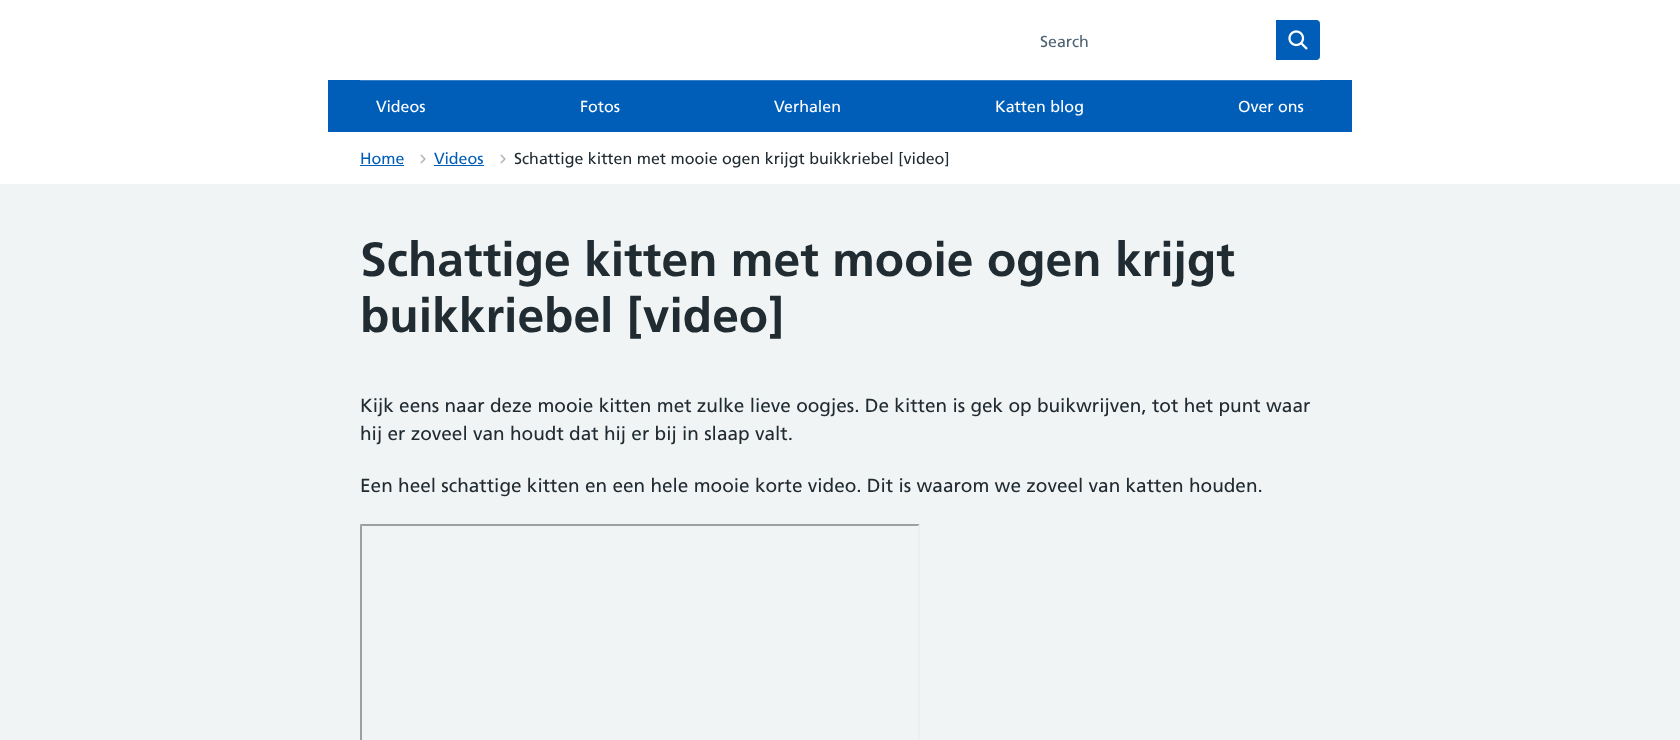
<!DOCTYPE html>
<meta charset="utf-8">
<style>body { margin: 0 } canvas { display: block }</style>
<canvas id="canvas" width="1680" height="740"></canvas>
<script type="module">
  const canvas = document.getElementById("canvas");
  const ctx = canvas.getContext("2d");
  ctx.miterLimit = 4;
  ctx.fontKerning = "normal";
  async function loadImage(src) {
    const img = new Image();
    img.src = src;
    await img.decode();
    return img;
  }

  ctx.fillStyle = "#f0f4f5";
  ctx.fillRect(0, 0, 1680, 740);
  ctx.fillStyle = "#ffffff";
  ctx.fillRect(0, 0, 1680, 184);
  ctx.font = "16px Frutiger";
  ctx.fillStyle = "#4c6272";
  ctx.fillText("Search", 1040, 47);
  ctx.fillStyle = "#005eb8";
  ctx.beginPath();
  ctx.roundRect(1276, 20, 44, 40, [0, 4, 4, 0]);
  ctx.fill();
  ctx.drawImage(await loadImage("img1.png"), 1288, 30, 20, 20);
  ctx.fillRect(328, 80, 1024, 52);
  ctx.fillStyle = "#337ec6";
  ctx.fillRect(360, 80, 960, 1);
  ctx.fillStyle = "#ffffff";
  ctx.fillText("Videos", 376, 112);
  ctx.fillText("Fotos", 580, 112);
  ctx.fillText("Verhalen", 774, 112);
  ctx.fillText("Katten blog", 995, 112);
  ctx.fillText("Over ons", 1238, 112);
  ctx.fillStyle = "#005eb8";
  ctx.fillText("Home", 360, 164);
  ctx.fillRect(360, 165, 44, 1);
  ctx.drawImage(await loadImage("img2.png"), 420, 154, 6, 10);
  ctx.fillText("Videos", 434, 164);
  ctx.fillRect(434, 165, 50, 1);
  ctx.drawImage(await loadImage("img2.png"), 500, 154, 6, 10);
  ctx.fillStyle = "#212b32";
  ctx.fillText("Schattige kitten met mooie ogen krijgt buikkriebel [video]", 514, 164);
  ctx.font = "bold 48px Frutiger";
  ctx.fillText("Schattige kitten met mooie ogen krijgt", 360, 276);
  ctx.fillText("buikkriebel [video]", 360, 332);
  ctx.font = "19px Frutiger";
  ctx.fillText("Kijk eens naar deze mooie kitten met zulke lieve oogjes. De kitten is gek op buikwrijven, tot het punt waar", 360, 412);
  ctx.fillText("hij er zoveel van houdt dat hij er bij in slaap valt.", 360, 440);
  ctx.fillText("Een heel schattige kitten en een hele mooie korte video. Dit is waarom we zoveel van katten houden.", 360, 492);
  ctx.fillStyle = "#9f9f9f";
  ctx.beginPath();
  ctx.moveTo(360, 524);
  ctx.lineTo(920, 524);
  ctx.lineTo(918, 526);
  ctx.lineTo(362, 526);
  ctx.closePath();
  ctx.fill();
  ctx.beginPath();
  ctx.moveTo(360, 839);
  ctx.lineTo(360, 524);
  ctx.lineTo(362, 526);
  ctx.lineTo(362, 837);
  ctx.closePath();
  ctx.fill();
  ctx.fillStyle = "#eeeeee";
  ctx.beginPath();
  ctx.moveTo(920, 524);
  ctx.lineTo(920, 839);
  ctx.lineTo(918, 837);
  ctx.lineTo(918, 526);
  ctx.closePath();
  ctx.fill();
</script>
